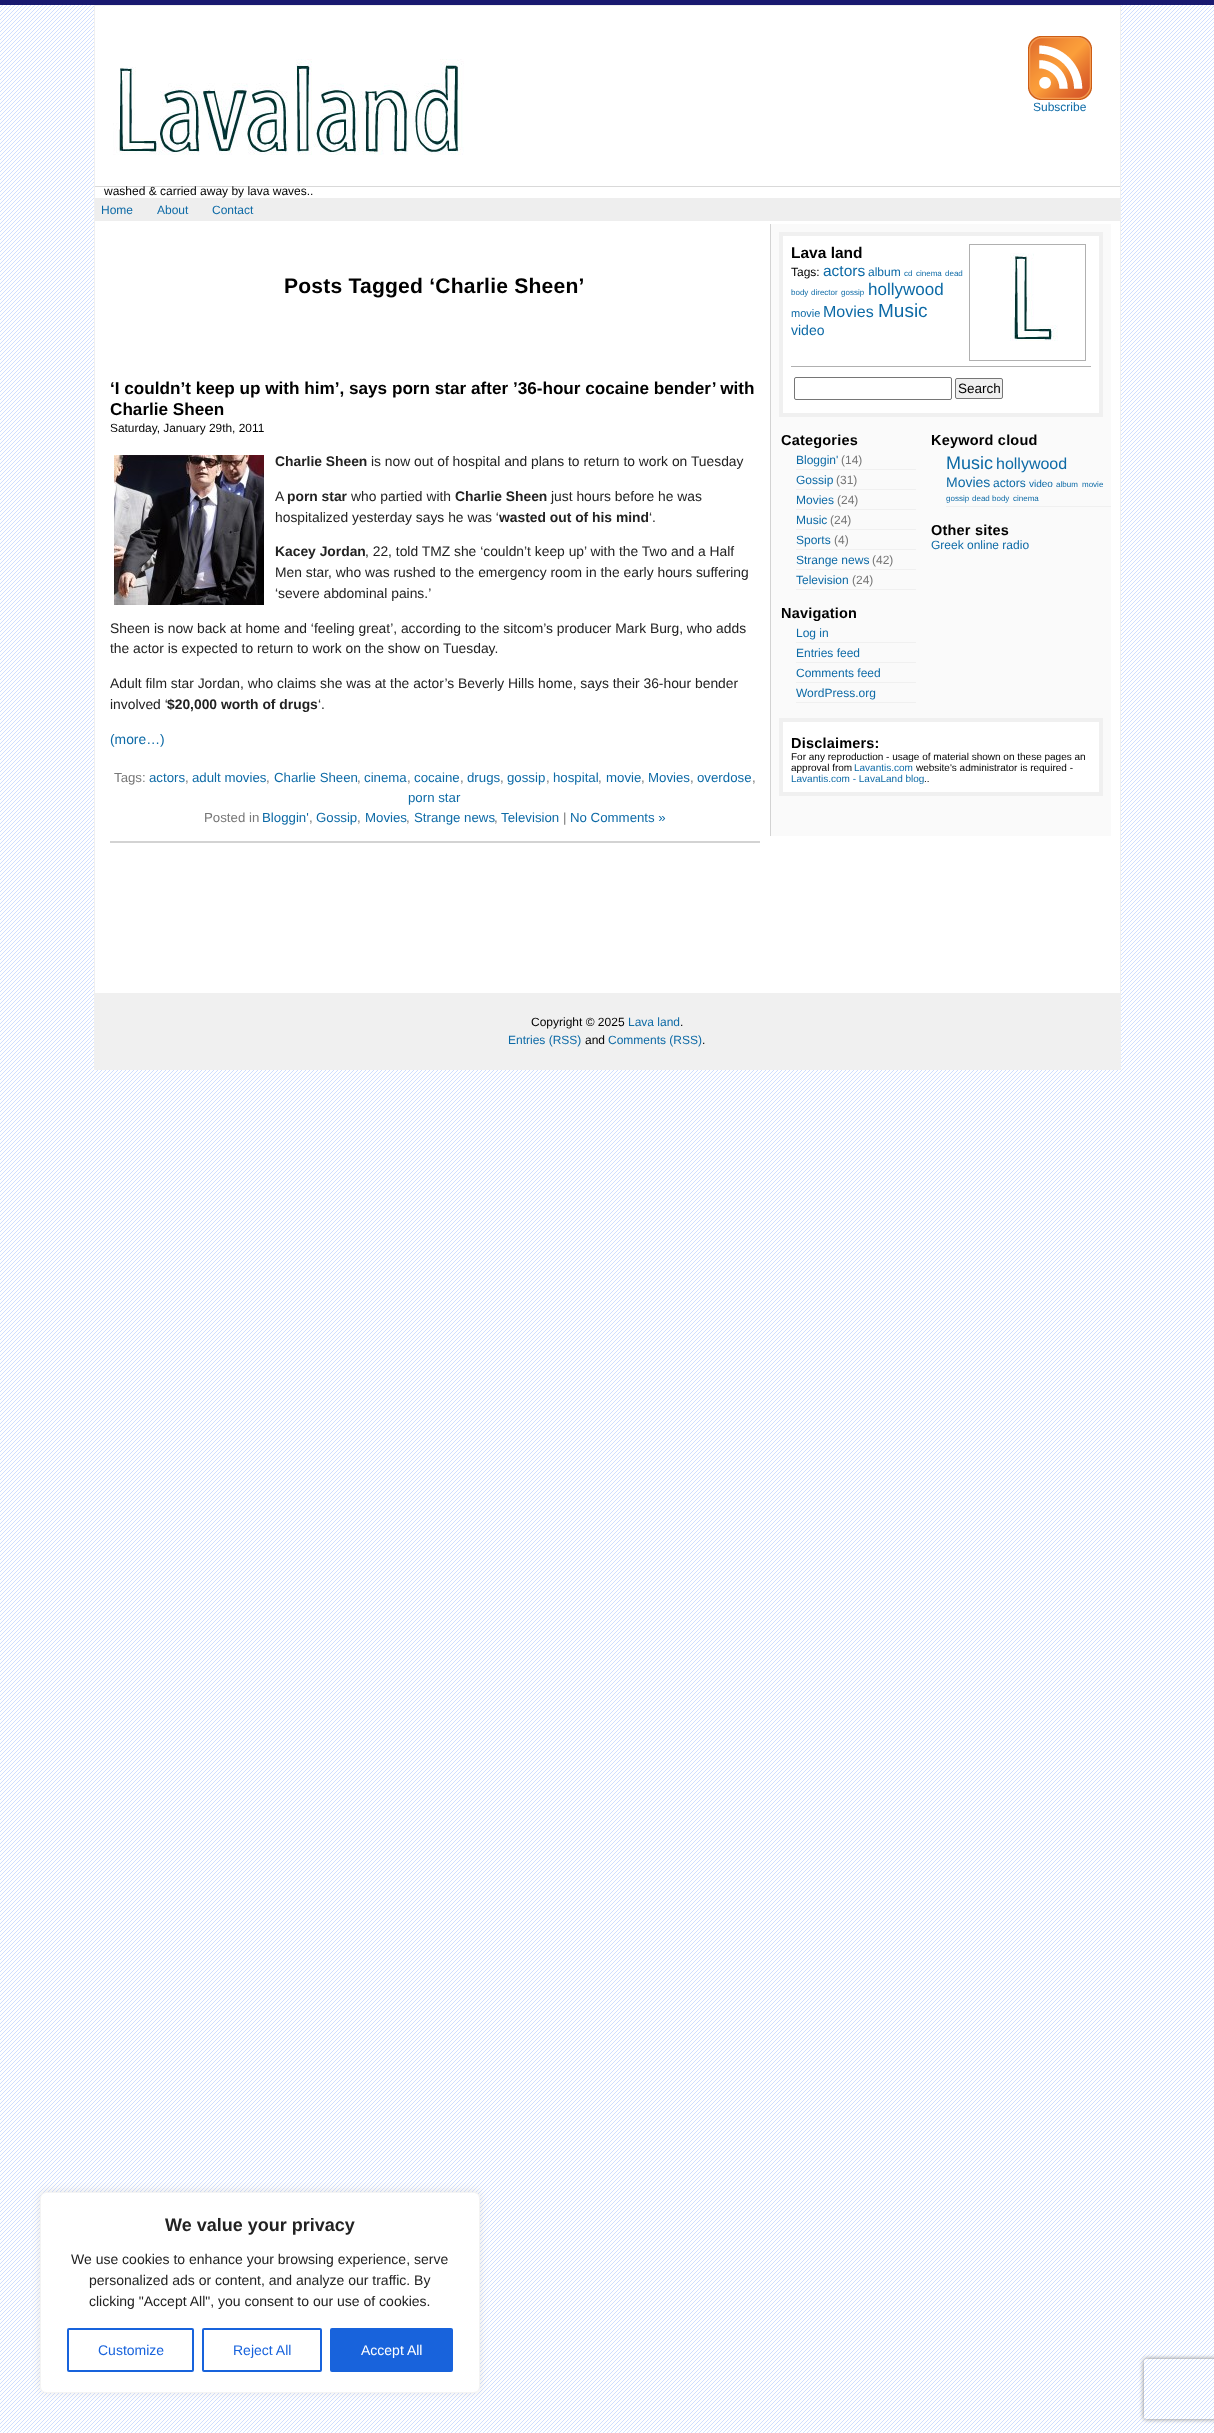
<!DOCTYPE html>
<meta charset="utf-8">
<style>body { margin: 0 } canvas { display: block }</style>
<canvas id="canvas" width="1214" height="2433"></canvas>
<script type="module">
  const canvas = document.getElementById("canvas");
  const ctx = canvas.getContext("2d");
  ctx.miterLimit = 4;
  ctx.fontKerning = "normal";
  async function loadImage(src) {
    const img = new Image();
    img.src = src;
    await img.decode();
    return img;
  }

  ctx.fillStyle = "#ffffff";
  ctx.fillRect(0, 0, 1214, 2433);
  ctx.drawImage(await loadImage("img1.png"), 0, 5, 1214, 2428);
  ctx.fillStyle = "#191970";
  ctx.fillRect(0, 0, 1214, 5);
  ctx.fillStyle = "#ffffff";
  ctx.fillRect(95, 6, 1025, 987);
  ctx.strokeStyle = "#f0f0f0";
  ctx.strokeRect(94.5, 5.5, 1026, 1064);
  ctx.fillStyle = "#d9d9d9";
  ctx.fillRect(95, 186, 1025, 1);
  ctx.drawImage(await loadImage("img2.png"), 1028, 36, 64, 64);
  ctx.font = "12px Liberation Sans";
  ctx.fillStyle = "#0d6aa6";
  ctx.fillText("Subscribe", 1033, 111);
  ctx.drawImage(await loadImage("img3.png"), 113, 59, 351, 96);
  ctx.fillStyle = "#000000";
  ctx.fillText("washed & carried away by lava waves..", 104, 195);
  ctx.fillStyle = "#eeeeee";
  ctx.fillRect(95, 198, 1025, 23);
  ctx.fillStyle = "#0d6aa6";
  ctx.fillText("Home", 101, 214);
  ctx.fillText("About", 157, 214);
  ctx.fillText("Contact", 212, 214);
  ctx.letterSpacing = "0.2px";
  ctx.font = "bold 21.1px Liberation Sans";
  ctx.fillStyle = "#000000";
  ctx.fillText("Posts Tagged ‘Charlie Sheen’", 284, 293);
  ctx.fillStyle = "#d3d3d3";
  ctx.fillRect(110, 841, 650, 2);
  ctx.letterSpacing = "0px";
  ctx.font = "bold 17.15px Liberation Sans";
  ctx.fillStyle = "#000000";
  ctx.fillText("‘I couldn’t keep up with him’, says porn star after ’36-hour cocaine bender’ with", 110, 394);
  ctx.fillText("Charlie Sheen", 110, 415);
  ctx.font = "11.9px Liberation Sans";
  ctx.fillText("Saturday, January 29th, 2011", 110, 432);
  ctx.drawImage(await loadImage("img4.png"), 114, 455, 150, 150);
  ctx.font = "bold 13.85px Liberation Sans";
  ctx.fillStyle = "#222222";
  ctx.fillText("Charlie Sheen", 275, 466);
  ctx.font = "13.85px Liberation Sans";
  ctx.fillText("is now out of hospital and plans to return to work on Tuesday", 371, 466);
  ctx.fillText("A", 275, 501);
  ctx.font = "bold 13.85px Liberation Sans";
  ctx.fillText("porn star", 287, 501);
  ctx.font = "13.85px Liberation Sans";
  ctx.fillText("who partied with", 351, 501);
  ctx.font = "bold 13.85px Liberation Sans";
  ctx.fillText("Charlie Sheen", 455, 501);
  ctx.font = "13.85px Liberation Sans";
  ctx.fillText("just hours before he was", 551, 501);
  ctx.fillText("hospitalized yesterday says he was ‘", 275, 522);
  ctx.font = "bold 13.85px Liberation Sans";
  ctx.fillText("wasted out of his mind", 499, 522);
  ctx.font = "13.85px Liberation Sans";
  ctx.fillText("‘.", 649, 522);
  ctx.font = "bold 13.85px Liberation Sans";
  ctx.fillText("Kacey Jordan", 275, 556);
  ctx.font = "13.85px Liberation Sans";
  ctx.fillText(", 22, told TMZ she ‘couldn’t keep up’ with the Two and a Half", 365, 556);
  ctx.fillText("Men star, who was rushed to the emergency room in the early hours suffering", 275, 577);
  ctx.fillText("‘severe abdominal pains.’", 275, 598);
  ctx.fillText("Sheen is now back at home and ‘feeling great’, according to the sitcom’s producer Mark Burg, who adds", 110, 633);
  ctx.fillText("the actor is expected to return to work on the show on Tuesday.", 110, 653);
  ctx.fillText("Adult film star Jordan, who claims she was at the actor’s Beverly Hills home, says their 36-hour bender", 110, 688);
  ctx.fillText("involved ‘", 110, 709);
  ctx.font = "bold 13.85px Liberation Sans";
  ctx.fillText("$20,000 worth of drugs", 167, 709);
  ctx.font = "13.85px Liberation Sans";
  ctx.fillText("‘.", 318, 709);
  ctx.fillStyle = "#0d6aa6";
  ctx.fillText("(more…)", 110, 744);
  ctx.font = "13.25px Liberation Sans";
  ctx.fillStyle = "#777777";
  ctx.fillText("Tags:", 114, 782);
  ctx.fillStyle = "#0d6aa6";
  ctx.fillText("actors", 149, 782);
  ctx.fillStyle = "#777777";
  ctx.fillText(",", 185, 782);
  ctx.fillStyle = "#0d6aa6";
  ctx.fillText("adult movies", 192, 782);
  ctx.fillStyle = "#777777";
  ctx.fillText(",", 266, 782);
  ctx.fillStyle = "#0d6aa6";
  ctx.fillText("Charlie Sheen", 274, 782);
  ctx.fillStyle = "#777777";
  ctx.fillText(",", 357, 782);
  ctx.fillStyle = "#0d6aa6";
  ctx.fillText("cinema", 364, 782);
  ctx.fillStyle = "#777777";
  ctx.fillText(",", 407, 782);
  ctx.fillStyle = "#0d6aa6";
  ctx.fillText("cocaine", 414, 782);
  ctx.fillStyle = "#777777";
  ctx.fillText(",", 460, 782);
  ctx.fillStyle = "#0d6aa6";
  ctx.fillText("drugs", 467, 782);
  ctx.fillStyle = "#777777";
  ctx.fillText(",", 500, 782);
  ctx.fillStyle = "#0d6aa6";
  ctx.fillText("gossip", 507, 782);
  ctx.fillStyle = "#777777";
  ctx.fillText(",", 546, 782);
  ctx.fillStyle = "#0d6aa6";
  ctx.fillText("hospital", 553, 782);
  ctx.fillStyle = "#777777";
  ctx.fillText(",", 598, 782);
  ctx.fillStyle = "#0d6aa6";
  ctx.fillText("movie", 606, 782);
  ctx.fillStyle = "#777777";
  ctx.fillText(",", 641, 782);
  ctx.fillStyle = "#0d6aa6";
  ctx.fillText("Movies", 648, 782);
  ctx.fillStyle = "#777777";
  ctx.fillText(",", 690, 782);
  ctx.fillStyle = "#0d6aa6";
  ctx.fillText("overdose", 697, 782);
  ctx.fillStyle = "#777777";
  ctx.fillText(",", 752, 782);
  ctx.fillStyle = "#0d6aa6";
  ctx.fillText("porn star", 408, 802);
  ctx.fillStyle = "#777777";
  ctx.fillText("Posted in", 204, 822);
  ctx.fillStyle = "#0d6aa6";
  ctx.fillText("Bloggin'", 262, 822);
  ctx.fillStyle = "#777777";
  ctx.fillText(",", 309, 822);
  ctx.fillStyle = "#0d6aa6";
  ctx.fillText("Gossip", 316, 822);
  ctx.fillStyle = "#777777";
  ctx.fillText(",", 357, 822);
  ctx.fillStyle = "#0d6aa6";
  ctx.fillText("Movies", 365, 822);
  ctx.fillStyle = "#777777";
  ctx.fillText(",", 406, 822);
  ctx.fillStyle = "#0d6aa6";
  ctx.fillText("Strange news", 414, 822);
  ctx.fillStyle = "#777777";
  ctx.fillText(",", 494, 822);
  ctx.fillStyle = "#0d6aa6";
  ctx.fillText("Television", 501, 822);
  ctx.fillStyle = "#777777";
  ctx.fillText("|", 563, 822);
  ctx.fillStyle = "#0d6aa6";
  ctx.fillText("No Comments »", 570, 822);
  ctx.fillStyle = "#fafafa";
  ctx.fillRect(771, 224, 340, 612);
  ctx.fillStyle = "#d3d3d3";
  ctx.fillRect(770, 224, 1, 612);
  ctx.fillStyle = "#ffffff";
  ctx.beginPath();
  ctx.rect(781, 234, 320, 181);
  ctx.fill();
  ctx.lineWidth = 4;
  ctx.stroke();
  ctx.font = "bold 15.5px Liberation Sans";
  ctx.fillStyle = "#000000";
  ctx.fillText("Lava land", 791, 258);
  ctx.strokeStyle = "#b0b0b0";
  ctx.lineWidth = 1;
  ctx.strokeRect(969.5, 244.5, 116, 116);
  ctx.drawImage(await loadImage("img5.png"), 1010, 253, 48, 88);
  ctx.font = "12px Liberation Sans";
  ctx.fillText("Tags:", 791, 276);
  ctx.font = "15.5px Liberation Sans";
  ctx.fillStyle = "#0d6aa6";
  ctx.fillText("actors", 823, 276);
  ctx.font = "12px Liberation Sans";
  ctx.fillText("album", 868, 276);
  ctx.font = "8px Liberation Sans";
  ctx.fillText("cd", 904, 276);
  ctx.fillText("cinema", 916, 276);
  ctx.fillText("dead", 945, 276);
  ctx.fillText("body", 791, 295);
  ctx.fillText("director", 811, 295);
  ctx.fillText("gossip", 841, 295);
  ctx.font = "17px Liberation Sans";
  ctx.fillText("hollywood", 868, 295);
  ctx.font = "11px Liberation Sans";
  ctx.fillText("movie", 791, 317);
  ctx.font = "16px Liberation Sans";
  ctx.fillText("Movies", 823, 317);
  ctx.font = "19px Liberation Sans";
  ctx.fillText("Music", 878, 317);
  ctx.font = "14px Liberation Sans";
  ctx.fillText("video", 791, 335);
  ctx.fillStyle = "#b0b0b0";
  ctx.fillRect(791, 366, 300, 1);
  ctx.beginPath();
  ctx.roundRect(794.5, 377.5, 157, 22, 1.5);
  ctx.strokeStyle = "#767676";
  ctx.stroke();
  ctx.fillStyle = "#efefef";
  ctx.beginPath();
  ctx.roundRect(955.5, 378.5, 47, 20, 1.5);
  ctx.fill();
  ctx.stroke();
  ctx.font = "13.5px Liberation Sans";
  ctx.fillStyle = "#000000";
  ctx.fillText("Search", 958, 393);
  ctx.letterSpacing = "0.2px";
  ctx.font = "bold 14.5px Liberation Sans";
  ctx.fillText("Categories", 781, 445);
  ctx.fillStyle = "#f0f0f0";
  ctx.fillRect(796, 469, 120, 1);
  ctx.letterSpacing = "0px";
  ctx.font = "12px Liberation Sans";
  ctx.fillStyle = "#0d6aa6";
  ctx.fillText("Bloggin'", 796, 464);
  ctx.fillStyle = "#777777";
  ctx.fillText("(14)", 841, 464);
  ctx.fillStyle = "#f0f0f0";
  ctx.fillRect(796, 489, 120, 1);
  ctx.fillStyle = "#0d6aa6";
  ctx.fillText("Gossip", 796, 484);
  ctx.fillStyle = "#777777";
  ctx.fillText("(31)", 836, 484);
  ctx.fillStyle = "#f0f0f0";
  ctx.fillRect(796, 509, 120, 1);
  ctx.fillStyle = "#0d6aa6";
  ctx.fillText("Movies", 796, 504);
  ctx.fillStyle = "#777777";
  ctx.fillText("(24)", 837, 504);
  ctx.fillStyle = "#f0f0f0";
  ctx.fillRect(796, 529, 120, 1);
  ctx.fillStyle = "#0d6aa6";
  ctx.fillText("Music", 796, 524);
  ctx.fillStyle = "#777777";
  ctx.fillText("(24)", 830, 524);
  ctx.fillStyle = "#f0f0f0";
  ctx.fillRect(796, 549, 120, 1);
  ctx.fillStyle = "#0d6aa6";
  ctx.fillText("Sports", 796, 544);
  ctx.fillStyle = "#777777";
  ctx.fillText("(4)", 834, 544);
  ctx.fillStyle = "#f0f0f0";
  ctx.fillRect(796, 569, 120, 1);
  ctx.fillStyle = "#0d6aa6";
  ctx.fillText("Strange news", 796, 564);
  ctx.fillStyle = "#777777";
  ctx.fillText("(42)", 872, 564);
  ctx.fillStyle = "#f0f0f0";
  ctx.fillRect(796, 589, 120, 1);
  ctx.fillStyle = "#0d6aa6";
  ctx.fillText("Television", 796, 584);
  ctx.fillStyle = "#777777";
  ctx.fillText("(24)", 852, 584);
  ctx.letterSpacing = "0.2px";
  ctx.font = "bold 14.5px Liberation Sans";
  ctx.fillStyle = "#000000";
  ctx.fillText("Navigation", 781, 618);
  ctx.fillStyle = "#f0f0f0";
  ctx.fillRect(796, 642, 120, 1);
  ctx.letterSpacing = "0px";
  ctx.font = "12px Liberation Sans";
  ctx.fillStyle = "#0d6aa6";
  ctx.fillText("Log in", 796, 637);
  ctx.fillStyle = "#f0f0f0";
  ctx.fillRect(796, 662, 120, 1);
  ctx.fillStyle = "#0d6aa6";
  ctx.fillText("Entries feed", 796, 657);
  ctx.fillStyle = "#f0f0f0";
  ctx.fillRect(796, 682, 120, 1);
  ctx.fillStyle = "#0d6aa6";
  ctx.fillText("Comments feed", 796, 677);
  ctx.fillStyle = "#f0f0f0";
  ctx.fillRect(796, 702, 120, 1);
  ctx.fillStyle = "#0d6aa6";
  ctx.fillText("WordPress.org", 796, 697);
  ctx.letterSpacing = "0.2px";
  ctx.font = "bold 14.5px Liberation Sans";
  ctx.fillStyle = "#000000";
  ctx.fillText("Keyword cloud", 931, 445);
  ctx.fillStyle = "#f0f0f0";
  ctx.fillRect(946, 506, 165, 1);
  ctx.letterSpacing = "0px";
  ctx.font = "18px Liberation Sans";
  ctx.fillStyle = "#0d6aa6";
  ctx.fillText("Music", 946, 469);
  ctx.font = "16px Liberation Sans";
  ctx.fillText("hollywood", 996, 469);
  ctx.font = "14px Liberation Sans";
  ctx.fillText("Movies", 946, 487);
  ctx.font = "12px Liberation Sans";
  ctx.fillText("actors", 993, 487);
  ctx.font = "10px Liberation Sans";
  ctx.fillText("video", 1029, 487);
  ctx.font = "8px Liberation Sans";
  ctx.fillText("album", 1056, 487);
  ctx.fillText("movie", 1082, 487);
  ctx.fillText("gossip", 946, 501);
  ctx.fillText("dead body", 972, 501);
  ctx.fillText("cinema", 1013, 501);
  ctx.letterSpacing = "0.2px";
  ctx.font = "bold 14.5px Liberation Sans";
  ctx.fillStyle = "#000000";
  ctx.fillText("Other sites", 931, 535);
  ctx.letterSpacing = "0px";
  ctx.font = "12px Liberation Sans";
  ctx.fillStyle = "#0d6aa6";
  ctx.fillText("Greek online radio", 931, 549);
  ctx.fillStyle = "#ffffff";
  ctx.beginPath();
  ctx.rect(781, 720, 320, 74);
  ctx.fill();
  ctx.strokeStyle = "#f0f0f0";
  ctx.lineWidth = 4;
  ctx.stroke();
  ctx.letterSpacing = "0.2px";
  ctx.font = "bold 14.5px Liberation Sans";
  ctx.fillStyle = "#000000";
  ctx.fillText("Disclaimers:", 791, 748);
  ctx.letterSpacing = "0px";
  ctx.font = "10px Liberation Sans";
  ctx.fillText("For any reproduction - usage of material shown on these pages an", 791, 760);
  ctx.fillText("approval from", 791, 771);
  ctx.fillStyle = "#0d6aa6";
  ctx.fillText("Lavantis.com", 854, 771);
  ctx.fillStyle = "#000000";
  ctx.fillText("website's administrator is required -", 916, 771);
  ctx.fillStyle = "#0d6aa6";
  ctx.fillText("Lavantis.com - LavaLand blog", 791, 782);
  ctx.fillStyle = "#000000";
  ctx.fillText("..", 924, 782);
  ctx.fillStyle = "#f0f0f0";
  ctx.fillRect(95, 993, 1025, 76);
  ctx.font = "12px Liberation Sans";
  ctx.fillStyle = "#000000";
  ctx.fillText("Copyright © 2025", 531, 1026);
  ctx.fillStyle = "#0d6aa6";
  ctx.fillText("Lava land", 628, 1026);
  ctx.fillStyle = "#000000";
  ctx.fillText(".", 680, 1026);
  ctx.fillStyle = "#0d6aa6";
  ctx.fillText("Entries (RSS)", 508, 1044);
  ctx.fillStyle = "#000000";
  ctx.fillText("and", 585, 1044);
  ctx.fillStyle = "#0d6aa6";
  ctx.fillText("Comments (RSS)", 608, 1044);
  ctx.fillStyle = "#000000";
  ctx.fillText(".", 702, 1044);
  ctx.fillStyle = "rgba(172, 171, 171, 0.3)";
  ctx.filter = "blur(5px)";
  ctx.beginPath();
  ctx.roundRect(40, 2191, 440, 201, 6);
  ctx.fill();
  ctx.filter = "none";
  ctx.fillStyle = "#ffffff";
  ctx.beginPath();
  ctx.roundRect(40.5, 2192.5, 439, 200, 5.5);
  ctx.fill();
  ctx.strokeStyle = "#f4f4f4";
  ctx.lineWidth = 1;
  ctx.stroke();
  ctx.font = "bold 18px Liberation Sans";
  ctx.fillStyle = "#222222";
  ctx.fillText("We value your privacy", 165, 2231);
  ctx.font = "14px Liberation Sans";
  ctx.fillText("We use cookies to enhance your browsing experience, serve", 71, 2264);
  ctx.fillText("personalized ads or content, and analyze our traffic. By", 89, 2285);
  ctx.fillText("clicking \"Accept All\", you consent to our use of cookies.", 89, 2306);
  ctx.beginPath();
  ctx.roundRect(68, 2329, 125, 42, 1);
  ctx.strokeStyle = "#1863dc";
  ctx.lineWidth = 2;
  ctx.stroke();
  ctx.fillStyle = "#1863dc";
  ctx.fillText("Customize", 98, 2355);
  ctx.beginPath();
  ctx.roundRect(203, 2329, 118, 42, 1);
  ctx.stroke();
  ctx.fillText("Reject All", 233, 2355);
  ctx.beginPath();
  ctx.roundRect(331, 2329, 121, 42, 1);
  ctx.fill();
  ctx.stroke();
  ctx.fillStyle = "#ffffff";
  ctx.fillText("Accept All", 361, 2355);
  ctx.save();
  ctx.beginPath();
  ctx.moveTo(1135, 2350);
  ctx.lineTo(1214, 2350);
  ctx.lineTo(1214, 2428);
  ctx.lineTo(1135, 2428);
  ctx.closePath();
  ctx.moveTo(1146, 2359);
  ctx.lineTo(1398, 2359);
  ctx.bezierCurveTo(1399, 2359, 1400, 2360, 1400, 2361);
  ctx.lineTo(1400, 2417);
  ctx.bezierCurveTo(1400, 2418, 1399, 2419, 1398, 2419);
  ctx.lineTo(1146, 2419);
  ctx.bezierCurveTo(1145, 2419, 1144, 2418, 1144, 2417);
  ctx.lineTo(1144, 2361);
  ctx.bezierCurveTo(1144, 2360, 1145, 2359, 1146, 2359);
  ctx.closePath();
  ctx.clip("evenodd");
  ctx.fillStyle = "#808080";
  ctx.filter = "blur(2.5px)";
  ctx.beginPath();
  ctx.roundRect(1144, 2359, 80, 60, 2);
  ctx.fill();
  ctx.filter = "none";
  ctx.restore();
</script>
